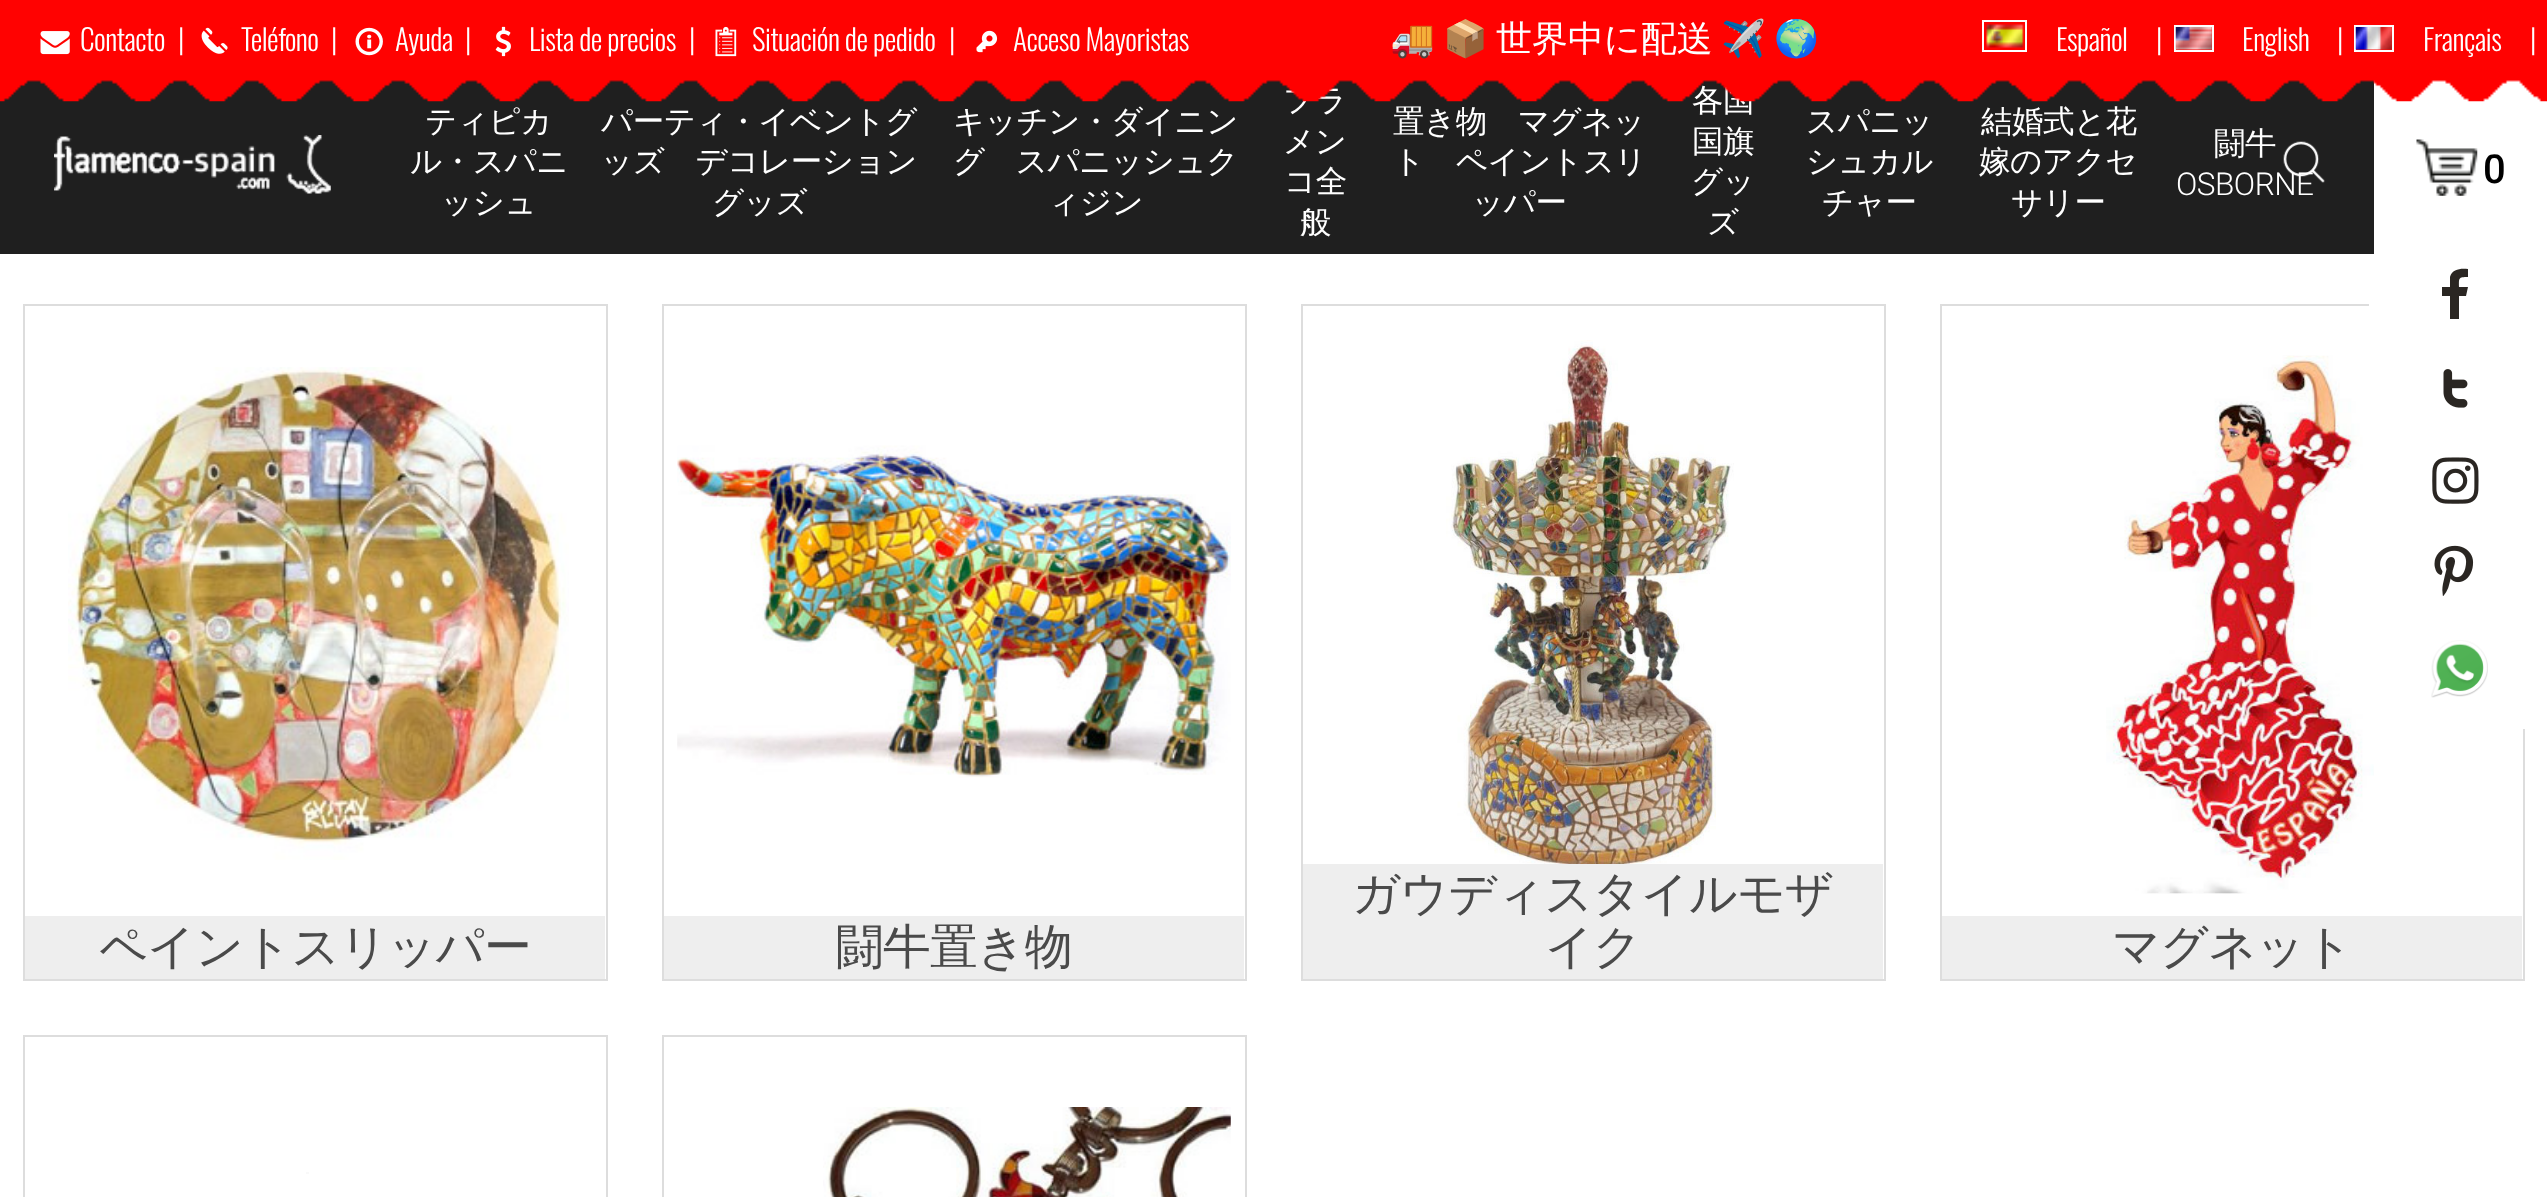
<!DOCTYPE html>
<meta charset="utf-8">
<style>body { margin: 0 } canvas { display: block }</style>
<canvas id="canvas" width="2547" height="1197"></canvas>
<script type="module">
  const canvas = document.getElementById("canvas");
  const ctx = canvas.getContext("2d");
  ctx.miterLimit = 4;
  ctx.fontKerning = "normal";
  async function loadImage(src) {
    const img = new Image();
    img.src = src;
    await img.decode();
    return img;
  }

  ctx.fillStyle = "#ffffff";
  ctx.fillRect(0, 0, 2547, 1197);
  ctx.fillStyle = "#ff0201";
  ctx.fillRect(0, 0, 2547, 70);
  ctx.drawImage(await loadImage("img1.png"), 40, 31, 30, 24);
  ctx.letterSpacing = "-0.5px";
  ctx.font = "300 29.25px Oswald";
  ctx.fillStyle = "#ffffff";
  ctx.fillText("Contacto", 80, 51);
  ctx.fillText("|", 178, 51);
  ctx.drawImage(await loadImage("img2.png"), 201, 27, 27, 27);
  ctx.fillText("Teléfono", 241, 51);
  ctx.fillText("|", 331, 51);
  ctx.drawImage(await loadImage("img3.png"), 355, 27, 28, 29);
  ctx.fillText("Ayuda", 395, 51);
  ctx.fillText("|", 465, 51);
  ctx.drawImage(await loadImage("img4.png"), 495, 26, 16, 31);
  ctx.fillText("Lista de precios", 529, 51);
  ctx.fillText("|", 689, 51);
  ctx.drawImage(await loadImage("img5.png"), 715, 26, 22, 31);
  ctx.fillText("Situación de pedido", 752, 51);
  ctx.fillText("|", 949, 51);
  ctx.drawImage(await loadImage("img6.png"), 976, 30, 22, 23);
  ctx.fillText("Acceso Mayoristas", 1013, 51);
  ctx.letterSpacing = "0px";
  ctx.font = "36px Noto Color Emoji";
  ctx.fillText("🚚", 1390, 51);
  ctx.fillText("📦", 1443, 51);
  ctx.font = "500 36px WenQuanYi Zen Hei";
  ctx.fillText("世界中に配送", 1496, 51);
  ctx.font = "36px Noto Color Emoji";
  ctx.fillText("✈️", 1721, 51);
  ctx.fillText("🌍", 1774, 51);
  ctx.strokeStyle = "#ffffff";
  ctx.lineWidth = 2;
  ctx.strokeRect(1983, 21, 43, 30);
  ctx.drawImage(await loadImage("img7.png"), 1986, 24, 38, 24);
  ctx.letterSpacing = "-0.5px";
  ctx.font = "300 29.25px Oswald";
  ctx.fillText("Español", 2056, 51);
  ctx.fillText("|", 2156, 51);
  ctx.strokeRect(2175, 26, 38, 25);
  ctx.drawImage(await loadImage("img8.png"), 2175, 27, 37, 23);
  ctx.fillText("English", 2242, 51);
  ctx.fillText("|", 2337, 51);
  ctx.strokeRect(2355, 26, 38, 25);
  ctx.drawImage(await loadImage("img9.png"), 2355, 27, 37, 23);
  ctx.fillText("Français", 2423, 51);
  ctx.fillText("|", 2530, 51);
  ctx.fillStyle = "#1f1f1f";
  ctx.fillRect(0, 80, 2374, 174);
  ctx.font = "500 31.5px WenQuanYi Zen Hei";
  ctx.fillStyle = "#ffffff";
  ctx.fillText("フラ", 1283, 111);
  ctx.fillText("各国", 1692, 111);
  ctx.drawImage(await loadImage("img10.png"), 0, 70, 2547, 32);
  ctx.drawImage(await loadImage("img11.png"), 54, 135, 277, 59);
  ctx.fillText("ティピカ", 425, 132);
  ctx.fillText("ル・スパニ", 410, 172);
  ctx.fillText("ッシュ", 441, 213);
  ctx.fillText("パーティ・イベントグ", 601, 132);
  ctx.fillText("ッズ　デコレーション", 601, 172);
  ctx.fillText("グッズ", 712, 213);
  ctx.fillText("キッチン・ダイニン", 953, 132);
  ctx.fillText("グ　スパニッシュク", 953, 172);
  ctx.fillText("ィジン", 1048, 213);
  ctx.fillText("メン", 1283, 152);
  ctx.fillText("コ全", 1284, 192);
  ctx.fillText("般", 1300, 233);
  ctx.fillText("置き物　マグネッ", 1393, 132);
  ctx.fillText("ト　ペイントスリ", 1393, 172);
  ctx.fillText("ッパー", 1472, 213);
  ctx.fillText("国旗", 1692, 152);
  ctx.fillText("グッ", 1691, 192);
  ctx.fillText("ズ", 1707, 233);
  ctx.fillText("スパニッ", 1806, 132);
  ctx.fillText("シュカル", 1806, 172);
  ctx.fillText("チャー", 1822, 213);
  ctx.fillText("結婚式と花", 1981, 132);
  ctx.fillText("嫁のアクセ", 1979, 172);
  ctx.fillText("サリー", 2011, 213);
  ctx.fillText("闘牛", 2214, 154);
  ctx.font = "300 31.5px Roboto";
  ctx.fillText("OSBORNE", 2176, 195);
  ctx.drawImage(await loadImage("img12.png"), 2283, 141, 42, 42);
  ctx.drawImage(await loadImage("img13.png"), 2416, 139, 62, 57);
  ctx.font = "500 40px Roboto";
  ctx.fillStyle = "#000000";
  ctx.fillText("0", 2483, 183);
  ctx.strokeStyle = "#dddddd";
  ctx.strokeRect(1941, 305, 583, 675);
  ctx.drawImage(await loadImage("img21.png"), 2106, 355, 268, 539);
  ctx.fillStyle = "#ffffff";
  ctx.fillRect(2369, 304, 156, 425);
  ctx.fillStyle = "#2a2622";
  ctx.beginPath();
  ctx.moveTo(2468, 269);
  ctx.lineTo(2468, 277);
  ctx.bezierCurveTo(2458, 277, 2459, 278, 2459, 287);
  ctx.lineTo(2468, 287);
  ctx.lineTo(2466, 296);
  ctx.lineTo(2459, 296);
  ctx.lineTo(2459, 319);
  ctx.lineTo(2450, 319);
  ctx.lineTo(2450, 296);
  ctx.lineTo(2442, 296);
  ctx.lineTo(2442, 287);
  ctx.lineTo(2450, 287);
  ctx.lineTo(2450, 277);
  ctx.bezierCurveTo(2452, 269, 2461, 268, 2468, 269);
  ctx.closePath();
  ctx.fill();
  ctx.drawImage(await loadImage("img14.png"), 2443, 369, 25, 39);
  ctx.drawImage(await loadImage("img15.png"), 2432, 457, 47, 47);
  ctx.drawImage(await loadImage("img16.png"), 2434, 545, 40, 51);
  ctx.drawImage(await loadImage("img17.png"), 2431, 640, 57, 58);
  ctx.strokeRect(24, 305, 583, 675);
  ctx.drawImage(await loadImage("img18.png"), 68, 367, 501, 493);
  ctx.fillStyle = "#eeeeee";
  ctx.fillRect(25, 916, 580, 63);
  ctx.letterSpacing = "-0.75px";
  ctx.font = "500 47.75px WenQuanYi Zen Hei";
  ctx.fillStyle = "#4a4a4a";
  ctx.fillText("ペイントスリッパー", 99, 963);
  ctx.strokeRect(663, 305, 583, 675);
  ctx.drawImage(await loadImage("img19.png"), 677, 445, 554, 333);
  ctx.fillStyle = "#eeeeee";
  ctx.fillRect(664, 916, 580, 63);
  ctx.fillStyle = "#4a4a4a";
  ctx.fillText("闘牛置き物", 836, 963);
  ctx.strokeRect(1302, 305, 583, 675);
  ctx.drawImage(await loadImage("img20.png"), 1446, 340, 288, 524);
  ctx.fillStyle = "#eeeeee";
  ctx.fillRect(1303, 864, 580, 115);
  ctx.fillStyle = "#4a4a4a";
  ctx.fillText("ガウディスタイルモザ", 1352, 910);
  ctx.fillText("イク", 1545, 963);
  ctx.fillStyle = "#eeeeee";
  ctx.fillRect(1942, 916, 580, 63);
  ctx.fillStyle = "#4a4a4a";
  ctx.fillText("マグネット", 2112, 963);
  ctx.strokeRect(24, 1036, 583, 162);
  ctx.fillStyle = "#f9f9f9";
  ctx.fillRect(306, 1172, 3, 2);
  ctx.strokeRect(663, 1036, 583, 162);
  ctx.drawImage(await loadImage("img22.png"), 823, 1107, 408, 90);
</script>
